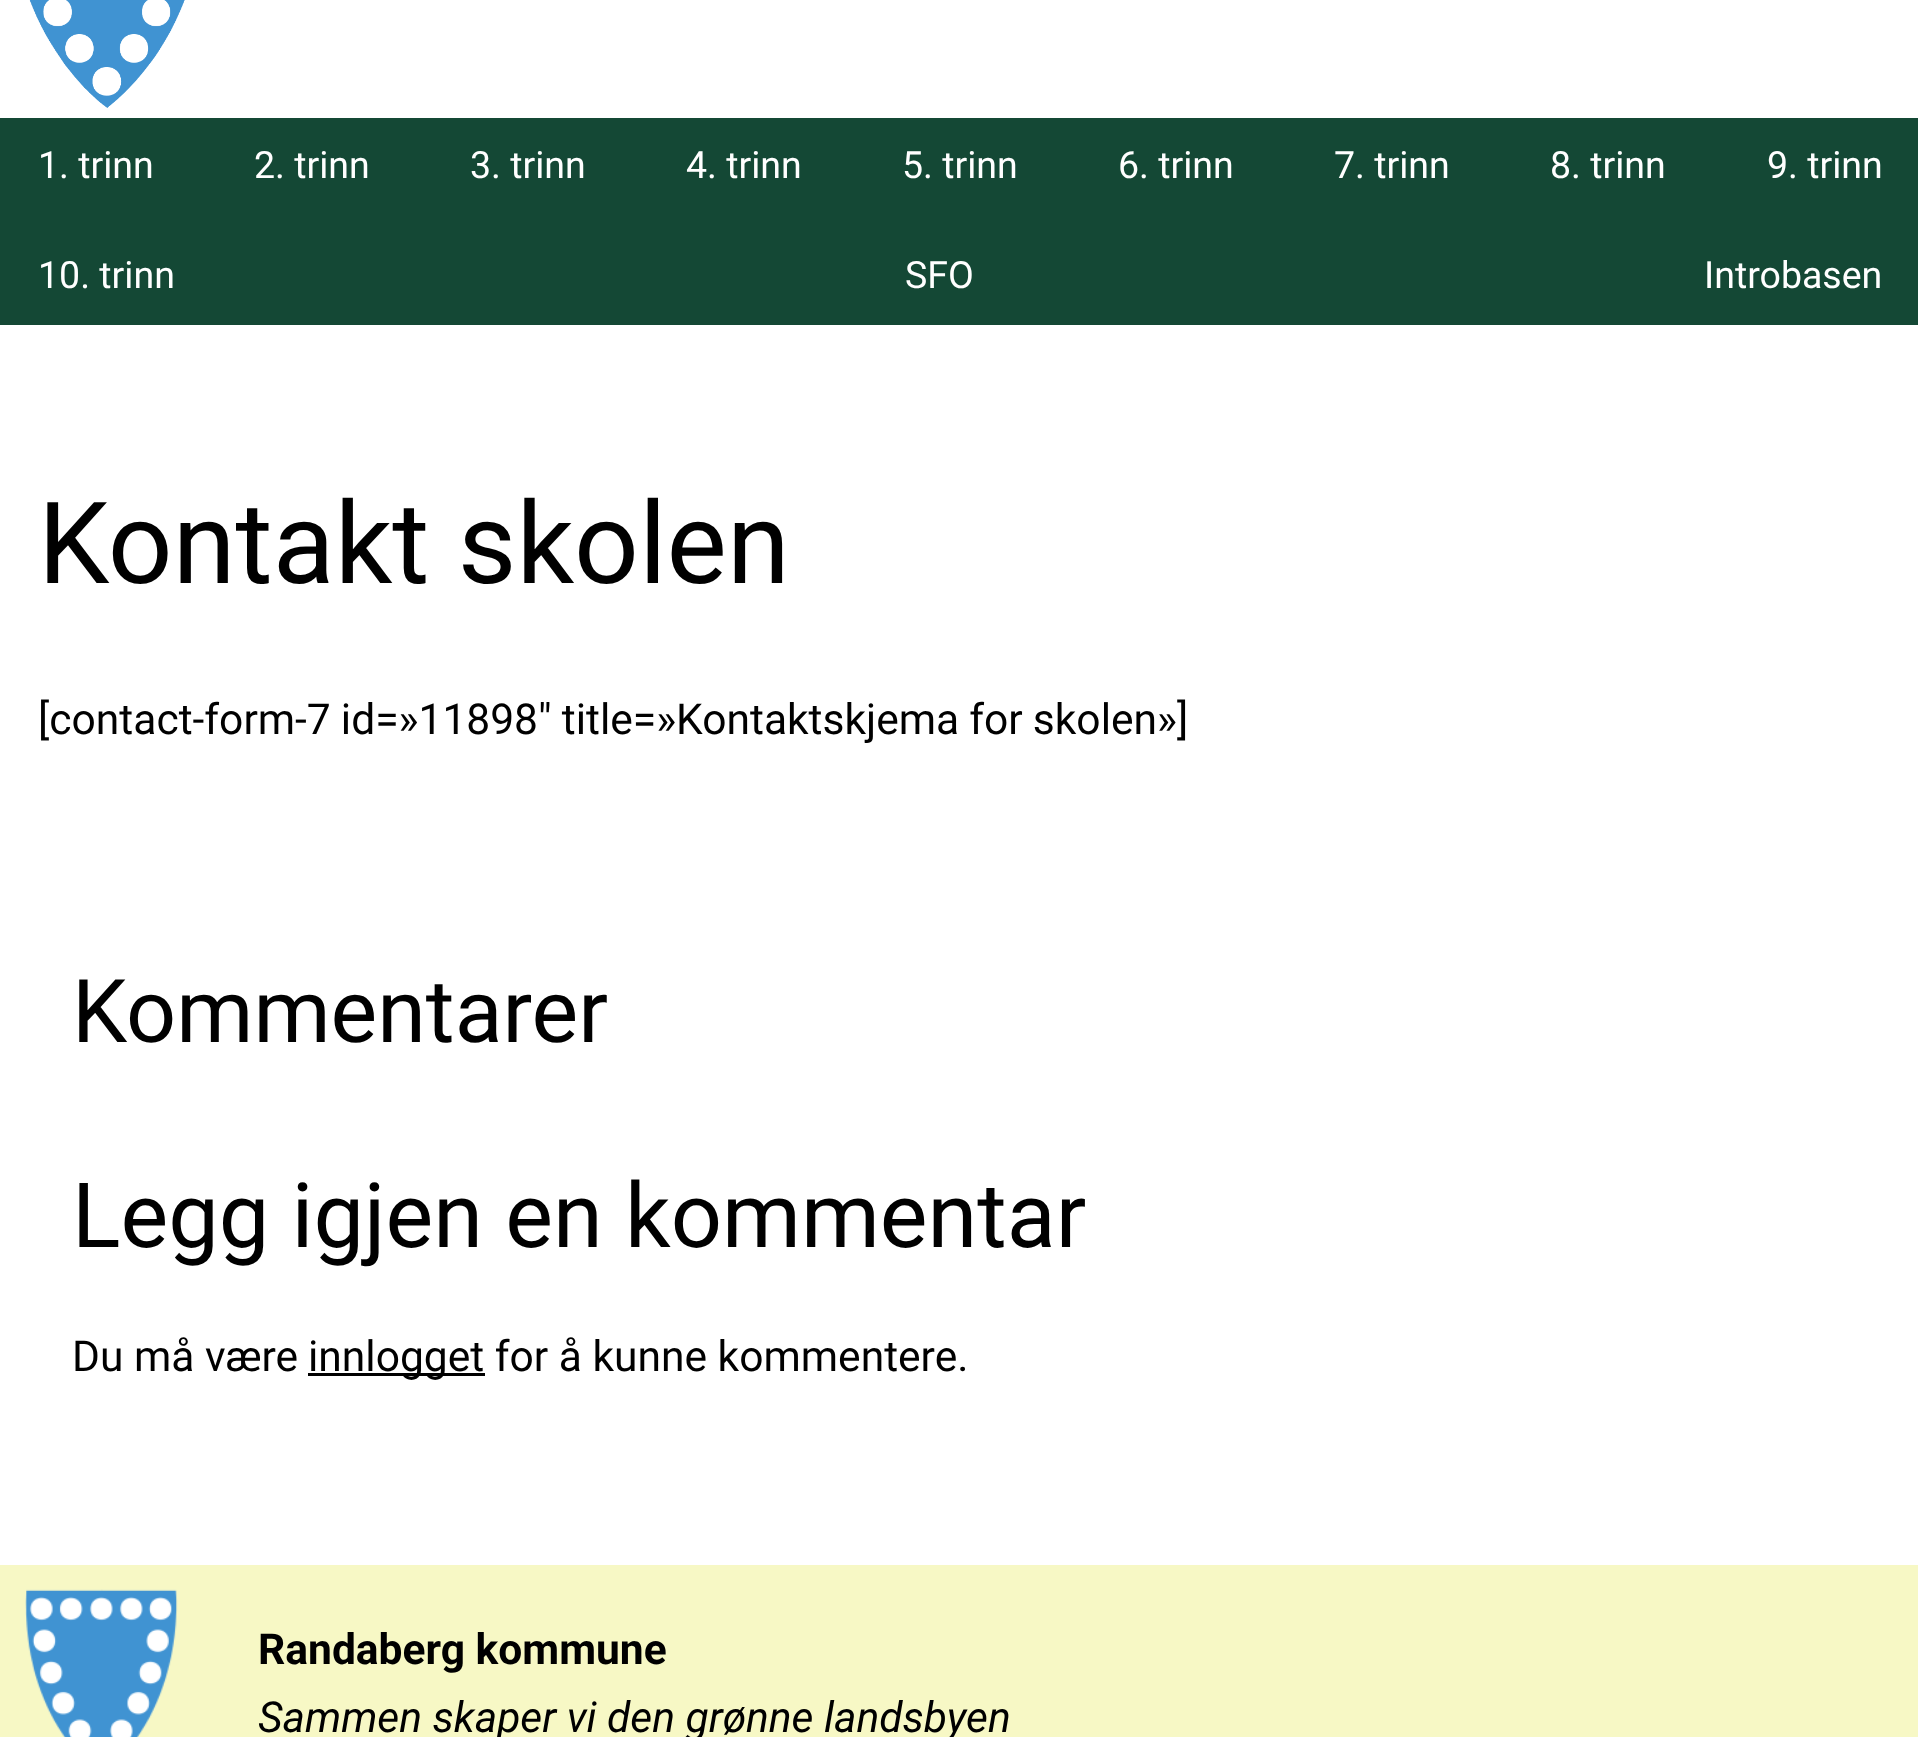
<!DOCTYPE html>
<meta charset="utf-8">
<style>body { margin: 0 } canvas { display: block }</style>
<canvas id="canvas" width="1918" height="1737"></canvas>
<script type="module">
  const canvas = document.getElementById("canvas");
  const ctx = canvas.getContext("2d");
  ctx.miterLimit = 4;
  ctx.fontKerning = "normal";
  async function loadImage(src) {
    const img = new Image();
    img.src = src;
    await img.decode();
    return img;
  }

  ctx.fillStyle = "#ffffff";
  ctx.fillRect(0, 0, 1918, 1737);
  ctx.drawImage(await loadImage("img1.png"), 29, 0, 156, 108);
  ctx.fillStyle = "#144835";
  ctx.fillRect(0, 118, 1918, 207);
  ctx.font = "37.5px Roboto";
  ctx.fillStyle = "#ffffff";
  ctx.fillText("1. trinn", 38, 178);
  ctx.fillText("2. trinn", 254, 178);
  ctx.fillText("3. trinn", 470, 178);
  ctx.fillText("4. trinn", 686, 178);
  ctx.fillText("5. trinn", 902, 178);
  ctx.fillText("6. trinn", 1118, 178);
  ctx.fillText("7. trinn", 1334, 178);
  ctx.fillText("8. trinn", 1550, 178);
  ctx.fillText("9. trinn", 1767, 178);
  ctx.fillText("10. trinn", 38, 288);
  ctx.fillText("SFO", 905, 288);
  ctx.fillText("Introbasen", 1704, 288);
  ctx.font = "113.75px Roboto";
  ctx.fillStyle = "#000000";
  ctx.fillText("Kontakt skolen", 38, 583);
  ctx.wordSpacing = "-0.5px";
  ctx.font = "42.55px Roboto";
  ctx.fillText("[contact-form-7 id=»11898″ title=»Kontaktskjema for skolen»]", 38, 734);
  ctx.wordSpacing = "0px";
  ctx.font = "88px Roboto";
  ctx.fillText("Kommentarer", 72, 1042);
  ctx.font = "90px Roboto";
  ctx.fillText("Legg igjen en kommentar", 72, 1247);
  ctx.font = "42.55px Roboto";
  ctx.fillText("Du må være", 72, 1371);
  ctx.fillRect(308, 1373, 177, 3);
  ctx.fillText("innlogget for å kunne kommentere.", 308, 1371);
  ctx.fillStyle = "#f7f8c5";
  ctx.fillRect(0, 1565, 1918, 172);
  ctx.drawImage(await loadImage("img2.png"), 25, 1589, 153, 148);
  ctx.font = "bold 42.55px Roboto";
  ctx.fillStyle = "#000000";
  ctx.fillText("Randaberg kommune", 258, 1664);
  ctx.font = "italic 42.55px Roboto";
  ctx.fillText("Sammen skaper vi den grønne landsbyen", 258, 1732);
</script>
